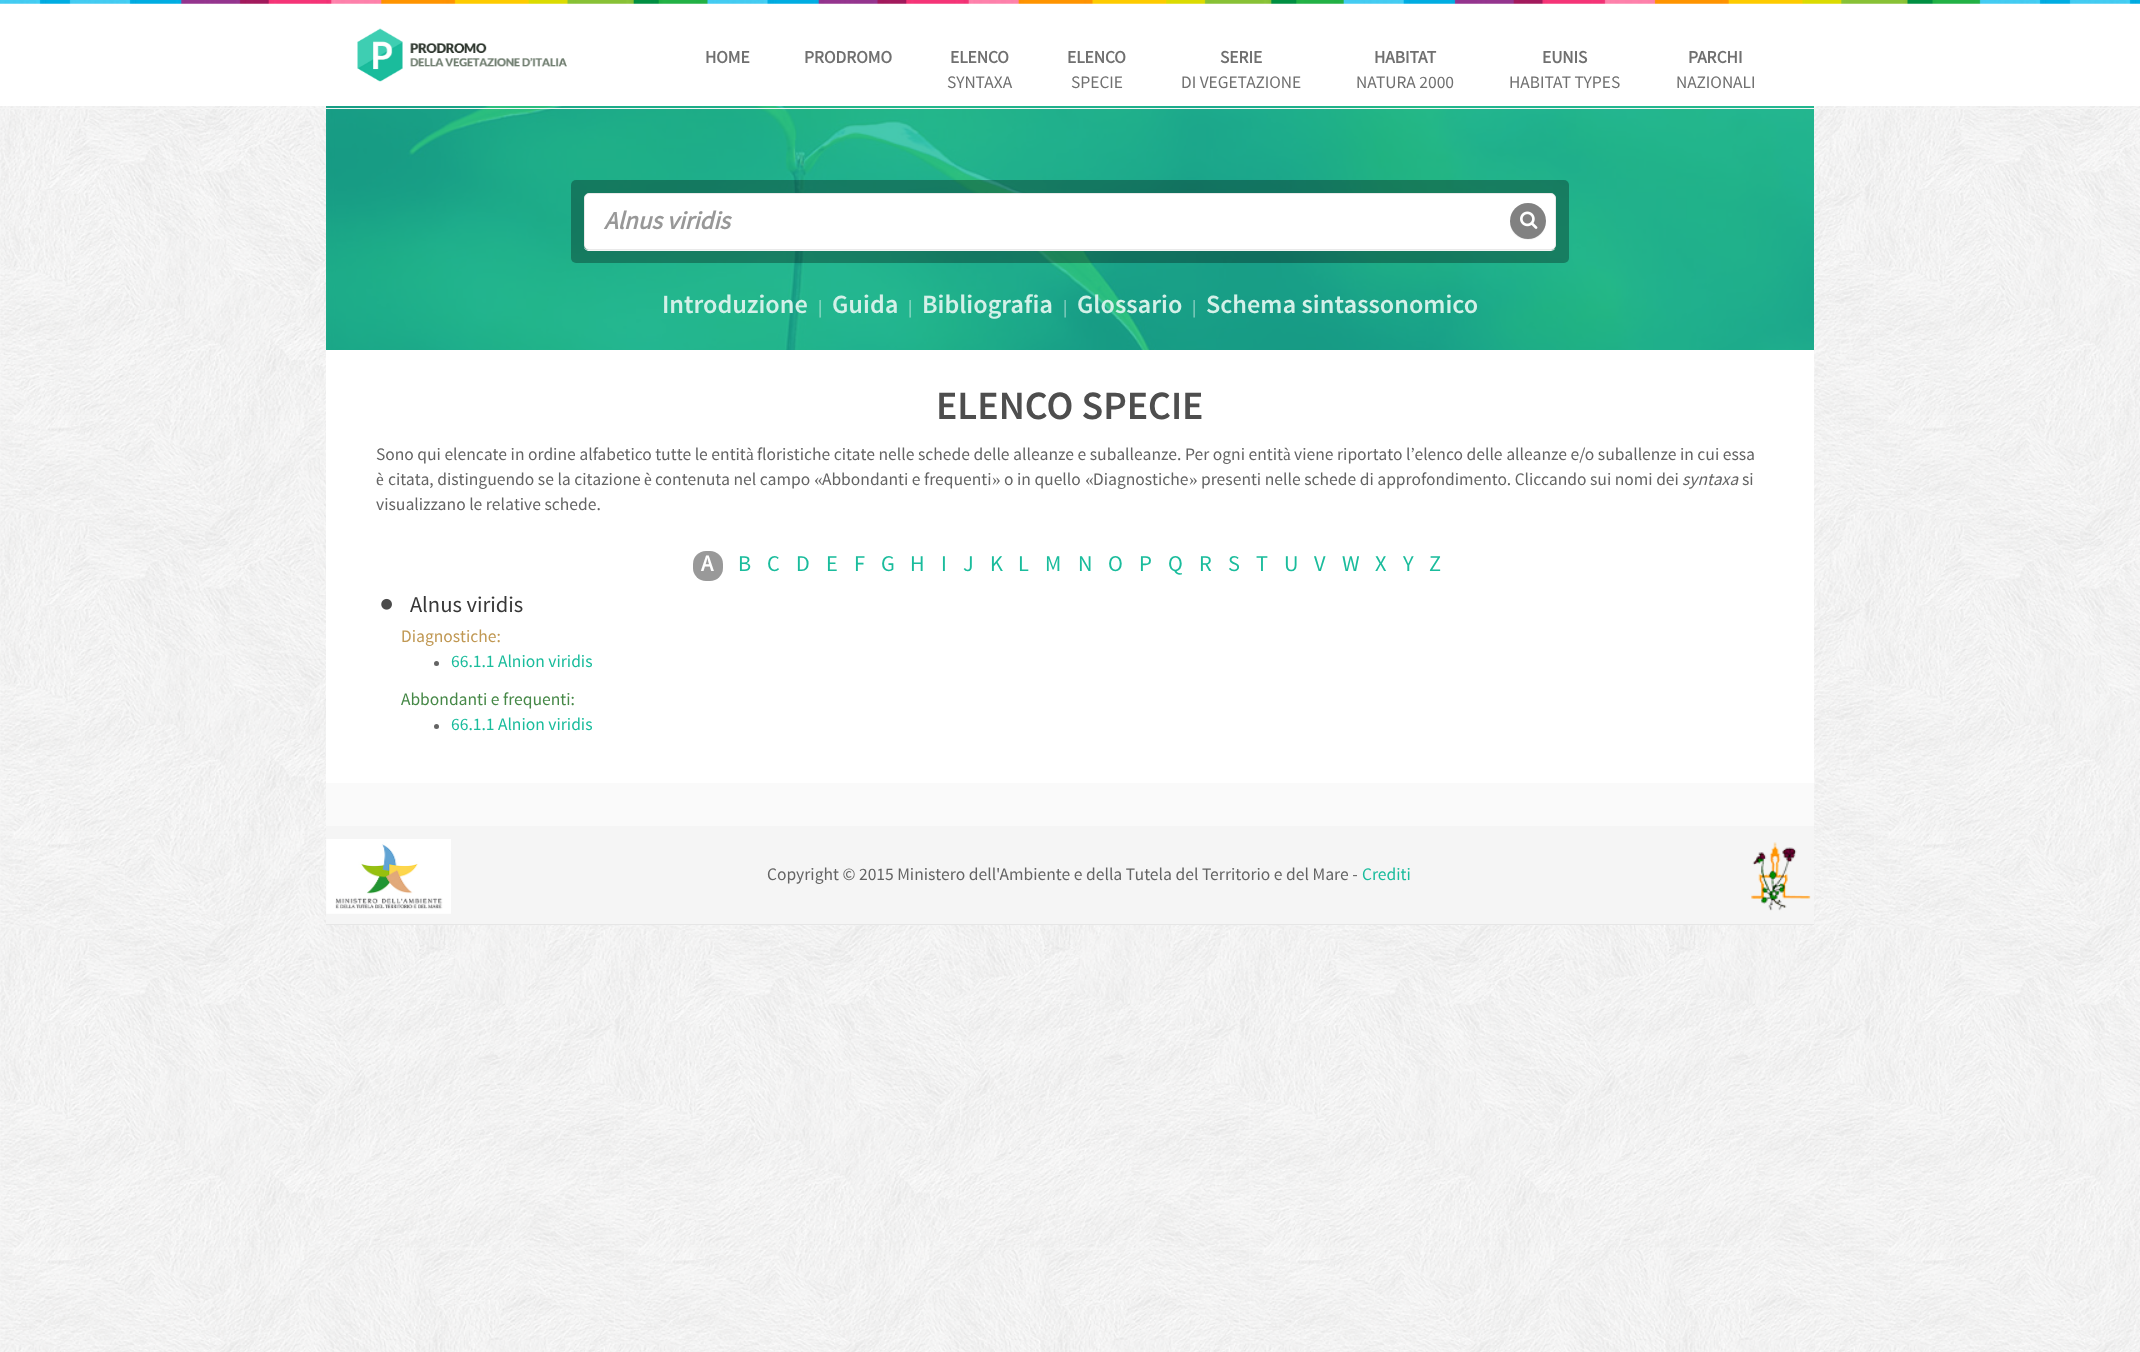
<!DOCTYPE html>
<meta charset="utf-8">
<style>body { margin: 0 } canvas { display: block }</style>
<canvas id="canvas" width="2140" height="1352"></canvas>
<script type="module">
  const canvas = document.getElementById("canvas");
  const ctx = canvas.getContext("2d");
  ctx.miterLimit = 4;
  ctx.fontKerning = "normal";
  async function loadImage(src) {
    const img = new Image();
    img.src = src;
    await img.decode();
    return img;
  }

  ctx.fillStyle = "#ffffff";
  ctx.fillRect(0, 0, 2140, 1352);
  ctx.drawImage(await loadImage("img1.png"), 0, 106, 2140, 1246);
  ctx.fillRect(326, 350, 1488, 433);
  ctx.drawImage(await loadImage("img2.png"), 0, 0, 2140, 4);
  ctx.drawImage(await loadImage("img3.png"), 357, 28, 210, 54);
  ctx.font = "bold 17.5px Source Sans Pro";
  ctx.fillStyle = "#707070";
  ctx.fillText("HOME", 705, 63);
  ctx.fillText("PRODROMO", 804, 63);
  ctx.fillText("ELENCO", 950, 63);
  ctx.font = "17.5px Source Sans Pro";
  ctx.fillText("SYNTAXA", 947, 88);
  ctx.font = "bold 17.5px Source Sans Pro";
  ctx.fillText("ELENCO", 1067, 63);
  ctx.font = "17.5px Source Sans Pro";
  ctx.fillText("SPECIE", 1071, 88);
  ctx.font = "bold 17.5px Source Sans Pro";
  ctx.fillText("SERIE", 1220, 63);
  ctx.font = "17.5px Source Sans Pro";
  ctx.fillText("DI VEGETAZIONE", 1181, 88);
  ctx.font = "bold 17.5px Source Sans Pro";
  ctx.fillText("HABITAT", 1374, 63);
  ctx.font = "17.5px Source Sans Pro";
  ctx.fillText("NATURA 2000", 1356, 88);
  ctx.font = "bold 17.5px Source Sans Pro";
  ctx.fillText("EUNIS", 1542, 63);
  ctx.font = "17.5px Source Sans Pro";
  ctx.fillText("HABITAT TYPES", 1509, 88);
  ctx.font = "bold 17.5px Source Sans Pro";
  ctx.fillText("PARCHI", 1688, 63);
  ctx.font = "17.5px Source Sans Pro";
  ctx.fillText("NAZIONALI", 1676, 88);
  ctx.drawImage(await loadImage("img4.png"), 326, 106, 1488, 244);
  ctx.fillStyle = "#f4f4f4";
  ctx.fillRect(0, 108, 2140, 1);
  ctx.fillStyle = "rgba(0, 0, 0, 0.3)";
  ctx.beginPath();
  ctx.roundRect(571, 180, 998, 83, 5);
  ctx.fill();
  ctx.fillStyle = "#f4f4f4";
  ctx.beginPath();
  ctx.moveTo(584, 247);
  ctx.bezierCurveTo(584, 249, 587, 251, 589, 251);
  ctx.lineTo(1551, 251);
  ctx.lineTo(1554, 250);
  ctx.lineTo(1556, 247);
  ctx.bezierCurveTo(1555, 249, 1553, 250, 1551, 250);
  ctx.lineTo(589, 250);
  ctx.bezierCurveTo(587, 250, 585, 249, 584, 247);
  ctx.closePath();
  ctx.fill();
  ctx.fillStyle = "#ffffff";
  ctx.beginPath();
  ctx.roundRect(584.5, 193.5, 971, 56, 4.5);
  ctx.fill();
  ctx.strokeStyle = "#e9e9e9";
  ctx.stroke();
  ctx.font = "italic bold 25px Source Sans Pro";
  ctx.fillStyle = "#989898";
  ctx.fillText("Alnus viridis", 604, 229);
  ctx.fillStyle = "#f4f4f4";
  ctx.beginPath();
  ctx.moveTo(1510, 221.5);
  ctx.bezierCurveTo(1509, 244, 1542.5, 247, 1546, 224.5);
  ctx.bezierCurveTo(1541.5, 245, 1511, 242.5, 1510, 221.5);
  ctx.closePath();
  ctx.fill();
  ctx.fillStyle = "#818181";
  ctx.beginPath();
  ctx.arc(1528, 221, 18, 0, Math.PI * 2);
  ctx.fill();
  ctx.drawImage(await loadImage("img5.png"), 1520, 211, 18, 18);
  ctx.font = "600 26.25px Source Sans Pro";
  ctx.fillStyle = "#d3f0e8";
  ctx.fillText("Introduzione", 662, 313);
  ctx.font = "17.5px Source Sans Pro";
  ctx.fillStyle = "#a7e2d2";
  ctx.fillText("|", 818, 313);
  ctx.font = "600 26.25px Source Sans Pro";
  ctx.fillStyle = "#d3f0e8";
  ctx.fillText("Guida", 832, 313);
  ctx.font = "17.5px Source Sans Pro";
  ctx.fillStyle = "#a7e2d2";
  ctx.fillText("|", 908, 313);
  ctx.font = "600 26.25px Source Sans Pro";
  ctx.fillStyle = "#d3f0e8";
  ctx.fillText("Bibliografia", 922, 313);
  ctx.font = "17.5px Source Sans Pro";
  ctx.fillStyle = "#a3dacf";
  ctx.fillText("|", 1063, 313);
  ctx.font = "600 26.25px Source Sans Pro";
  ctx.fillStyle = "#d3f0e8";
  ctx.fillText("Glossario", 1077, 313);
  ctx.font = "17.5px Source Sans Pro";
  ctx.fillStyle = "#a3dacf";
  ctx.fillText("|", 1192, 313);
  ctx.font = "600 26.25px Source Sans Pro";
  ctx.fillStyle = "#d3f0e8";
  ctx.fillText("Schema sintassonomico", 1206, 313);
  ctx.font = "600 40px Source Sans Pro";
  ctx.fillStyle = "#4e4e4e";
  ctx.fillText("ELENCO SPECIE", 936, 419);
  ctx.font = "17.5px Source Sans Pro";
  ctx.fillStyle = "#646464";
  ctx.fillText("Sono qui elencate in ordine alfabetico tutte le entit", 376, 460);
  ctx.font = "17.5px Liberation Serif";
  ctx.fillText("à", 746, 460);
  ctx.font = "17.5px Source Sans Pro";
  ctx.fillText("floristiche citate nelle schede delle alleanze e suballeanze. Per ogni entit", 757, 460);
  ctx.font = "17.5px Liberation Serif";
  ctx.fillText("à", 1283, 460);
  ctx.font = "17.5px Source Sans Pro";
  ctx.fillText("viene riportato l’elenco delle alleanze e/o suballenze in cui essa", 1294, 460);
  ctx.font = "17.5px Liberation Serif";
  ctx.fillText("è", 376, 485);
  ctx.font = "17.5px Source Sans Pro";
  ctx.fillText("citata, distinguendo se la citazione", 388, 485);
  ctx.font = "17.5px Liberation Serif";
  ctx.fillText("è", 644, 485);
  ctx.font = "17.5px Source Sans Pro";
  ctx.fillText("contenuta nel campo", 655, 485);
  ctx.font = "17.5px Liberation Serif";
  ctx.fillText("«", 814, 485);
  ctx.font = "17.5px Source Sans Pro";
  ctx.fillText("Abbondanti e frequenti", 822, 485);
  ctx.font = "17.5px Liberation Serif";
  ctx.fillText("»", 992, 485);
  ctx.font = "17.5px Source Sans Pro";
  ctx.fillText("o in quello", 1004, 485);
  ctx.font = "17.5px Liberation Serif";
  ctx.fillText("«", 1085, 485);
  ctx.font = "17.5px Source Sans Pro";
  ctx.fillText("Diagnostiche", 1093, 485);
  ctx.font = "17.5px Liberation Serif";
  ctx.fillText("»", 1189, 485);
  ctx.font = "17.5px Source Sans Pro";
  ctx.fillText("presenti nelle schede di approfondimento. Cliccando sui nomi dei", 1201, 485);
  ctx.font = "italic 17.5px Source Sans Pro";
  ctx.fillText("syntaxa", 1682, 485);
  ctx.font = "17.5px Source Sans Pro";
  ctx.fillText("si", 1742, 485);
  ctx.fillText("visualizzano le relative schede.", 376, 510);
  ctx.fillStyle = "#999999";
  ctx.beginPath();
  ctx.roundRect(693, 551, 30, 30, 13);
  ctx.fill();
  ctx.font = "bold 22.5px Source Sans Pro";
  ctx.fillStyle = "#ffffff";
  ctx.fillText("A", 701, 571);
  ctx.font = "22.5px Source Sans Pro";
  ctx.fillStyle = "#1abc9c";
  ctx.fillText("B", 738, 571);
  ctx.fillText("C", 767, 571);
  ctx.fillText("D", 796, 571);
  ctx.fillText("E", 826, 571);
  ctx.fillText("F", 854, 571);
  ctx.fillText("G", 881, 571);
  ctx.fillText("H", 910, 571);
  ctx.fillText("I", 941, 571);
  ctx.fillText("J", 963, 571);
  ctx.fillText("K", 990, 571);
  ctx.fillText("L", 1018, 571);
  ctx.fillText("M", 1045, 571);
  ctx.fillText("N", 1078, 571);
  ctx.fillText("O", 1108, 571);
  ctx.fillText("P", 1139, 571);
  ctx.fillText("Q", 1168, 571);
  ctx.fillText("R", 1199, 571);
  ctx.fillText("S", 1228, 571);
  ctx.fillText("T", 1256, 571);
  ctx.fillText("U", 1284, 571);
  ctx.fillText("V", 1314, 571);
  ctx.fillText("W", 1342, 571);
  ctx.fillText("X", 1375, 571);
  ctx.fillText("Y", 1403, 571);
  ctx.fillText("Z", 1429, 571);
  ctx.drawImage(await loadImage("img6.png"), 381, 598, 11, 12);
  ctx.fillStyle = "#373737";
  ctx.fillText("Alnus viridis", 410, 612);
  ctx.font = "17.5px Source Sans Pro";
  ctx.fillStyle = "#c09853";
  ctx.fillText("Diagnostiche:", 401, 642);
  ctx.fillStyle = "#646464";
  ctx.beginPath();
  ctx.arc(436.5, 663.5, 2.5, 0, Math.PI * 2);
  ctx.fill();
  ctx.fillStyle = "#1abc9c";
  ctx.fillText("66.1.1 Alnion viridis", 451, 667);
  ctx.fillStyle = "#468847";
  ctx.fillText("Abbondanti e frequenti:", 401, 705);
  ctx.fillStyle = "#646464";
  ctx.beginPath();
  ctx.arc(436.5, 726.5, 2.5, 0, Math.PI * 2);
  ctx.fill();
  ctx.fillStyle = "#1abc9c";
  ctx.fillText("66.1.1 Alnion viridis", 451, 730);
  ctx.fillStyle = "#fafafa";
  ctx.fillRect(326, 783, 1488, 43);
  ctx.fillStyle = "#f5f5f5";
  ctx.fillRect(326, 826, 1488, 98);
  ctx.fillStyle = "#e6e6e6";
  ctx.fillRect(326, 924, 1488, 1);
  ctx.drawImage(await loadImage("img7.png"), 326, 839, 125, 75);
  ctx.fillStyle = "#646464";
  ctx.fillText("Copyright © 2015 Ministero dell'Ambiente e della Tutela del Territorio e del Mare -", 767, 880);
  ctx.fillStyle = "#1abc9c";
  ctx.fillText("Crediti", 1362, 880);
  ctx.drawImage(await loadImage("img8.png"), 1751, 842, 60, 69);
</script>
